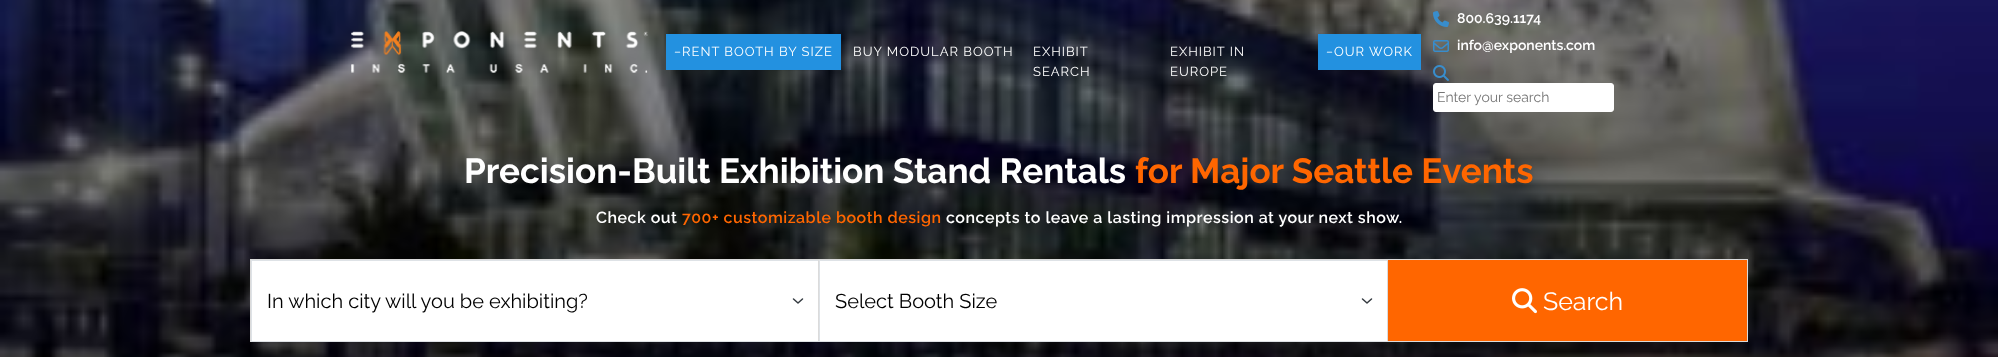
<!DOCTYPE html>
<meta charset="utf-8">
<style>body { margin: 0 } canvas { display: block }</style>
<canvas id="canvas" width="1998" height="357"></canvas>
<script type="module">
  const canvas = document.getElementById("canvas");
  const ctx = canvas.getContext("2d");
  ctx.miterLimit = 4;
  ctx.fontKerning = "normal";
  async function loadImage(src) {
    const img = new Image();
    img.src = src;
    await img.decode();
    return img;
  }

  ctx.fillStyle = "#ffffff";
  ctx.fillRect(0, 0, 1998, 357);
  ctx.drawImage(await loadImage("img5.png"), 0, 0, 1998, 357);
  ctx.drawImage(await loadImage("img1.png"), 351, 31, 297, 42);
  ctx.fillStyle = "#2391e0";
  ctx.fillRect(666, 34, 175, 36);
  ctx.letterSpacing = "1px";
  ctx.font = "13px Raleway";
  ctx.fillStyle = "#ffffff";
  ctx.fillText("−RENT BOOTH BY SIZE", 674, 56);
  ctx.fillText("BUY MODULAR BOOTH", 853, 56);
  ctx.fillText("EXHIBIT", 1033, 56);
  ctx.fillText("SEARCH", 1033, 76);
  ctx.fillText("EXHIBIT IN", 1170, 56);
  ctx.fillText("EUROPE", 1170, 76);
  ctx.fillStyle = "#2391e0";
  ctx.fillRect(1318, 34, 103, 36);
  ctx.fillStyle = "#ffffff";
  ctx.fillText("−OUR WORK", 1326, 56);
  ctx.drawImage(await loadImage("img2.png"), 1433, 11, 16, 16);
  ctx.letterSpacing = "0px";
  ctx.font = "600 14px Raleway";
  ctx.fillText("800.639.1174", 1457, 23);
  ctx.drawImage(await loadImage("img3.png"), 1433, 40, 16, 12);
  ctx.fillText("info@exponents.com", 1457, 50);
  ctx.drawImage(await loadImage("img4.png"), 1433, 65, 16, 16);
  ctx.beginPath();
  ctx.roundRect(1433.5, 83.5, 180, 28, 2.5);
  ctx.fill();
  ctx.strokeStyle = "#ffffff";
  ctx.stroke();
  ctx.font = "14px Raleway";
  ctx.fillStyle = "#757575";
  ctx.fillText("Enter your search", 1437, 102);
  ctx.font = "bold 35px Raleway";
  ctx.fillStyle = "#ffffff";
  ctx.fillText("Precision-Built Exhibition Stand Rentals", 464, 183);
  ctx.fillStyle = "#ff6600";
  ctx.fillText("for Major Seattle Events", 1135, 183);
  ctx.letterSpacing = "0.5px";
  ctx.font = "600 16px Raleway";
  ctx.fillStyle = "#ffffff";
  ctx.fillText("Check out", 596, 223);
  ctx.fillStyle = "#ff6600";
  ctx.fillText("700+ customizable booth design", 682, 223);
  ctx.fillStyle = "#ffffff";
  ctx.fillText("concepts to leave a lasting impression at your next show.", 946, 223);
  ctx.strokeStyle = "#dbdbdb";
  ctx.strokeRect(250.5, 259.5, 1497, 82);
  ctx.fillRect(252, 261, 566, 80);
  ctx.beginPath();
  ctx.moveTo(793.5, 299);
  ctx.lineTo(798, 303);
  ctx.lineTo(802.5, 299);
  ctx.strokeStyle = "#343a40";
  ctx.lineWidth = 1.5;
  ctx.lineCap = "round";
  ctx.lineJoin = "round";
  ctx.stroke();
  ctx.fillStyle = "#dee2e6";
  ctx.fillRect(251, 260, 1137, 1);
  ctx.fillStyle = "#dbdbdb";
  ctx.fillRect(818, 260, 1, 82);
  ctx.fillStyle = "#dee2e6";
  ctx.fillRect(251, 341, 568, 1);
  ctx.fillRect(251, 260, 1, 82);
  ctx.letterSpacing = "0px";
  ctx.font = "20px Raleway";
  ctx.fillStyle = "#000000";
  ctx.fillText("In which city will you be exhibiting?", 267, 308);
  ctx.fillStyle = "#ffffff";
  ctx.fillRect(820, 261, 567, 80);
  ctx.beginPath();
  ctx.moveTo(1362.5, 299);
  ctx.lineTo(1367, 303);
  ctx.lineTo(1371.5, 299);
  ctx.stroke();
  ctx.fillStyle = "#dbdbdb";
  ctx.fillRect(1387, 260, 1, 82);
  ctx.fillStyle = "#dee2e6";
  ctx.fillRect(819, 341, 569, 1);
  ctx.fillRect(819, 260, 1, 82);
  ctx.fillStyle = "#000000";
  ctx.fillText("Select Booth Size", 835, 308);
  ctx.fillStyle = "#ff6600";
  ctx.fillRect(1388, 260, 359, 81);
  ctx.drawImage(await loadImage("img6.png"), 1512, 288, 25, 26);
  ctx.font = "25px Raleway";
  ctx.fillStyle = "#ffffff";
  ctx.fillText("Search", 1543, 310);
</script>
